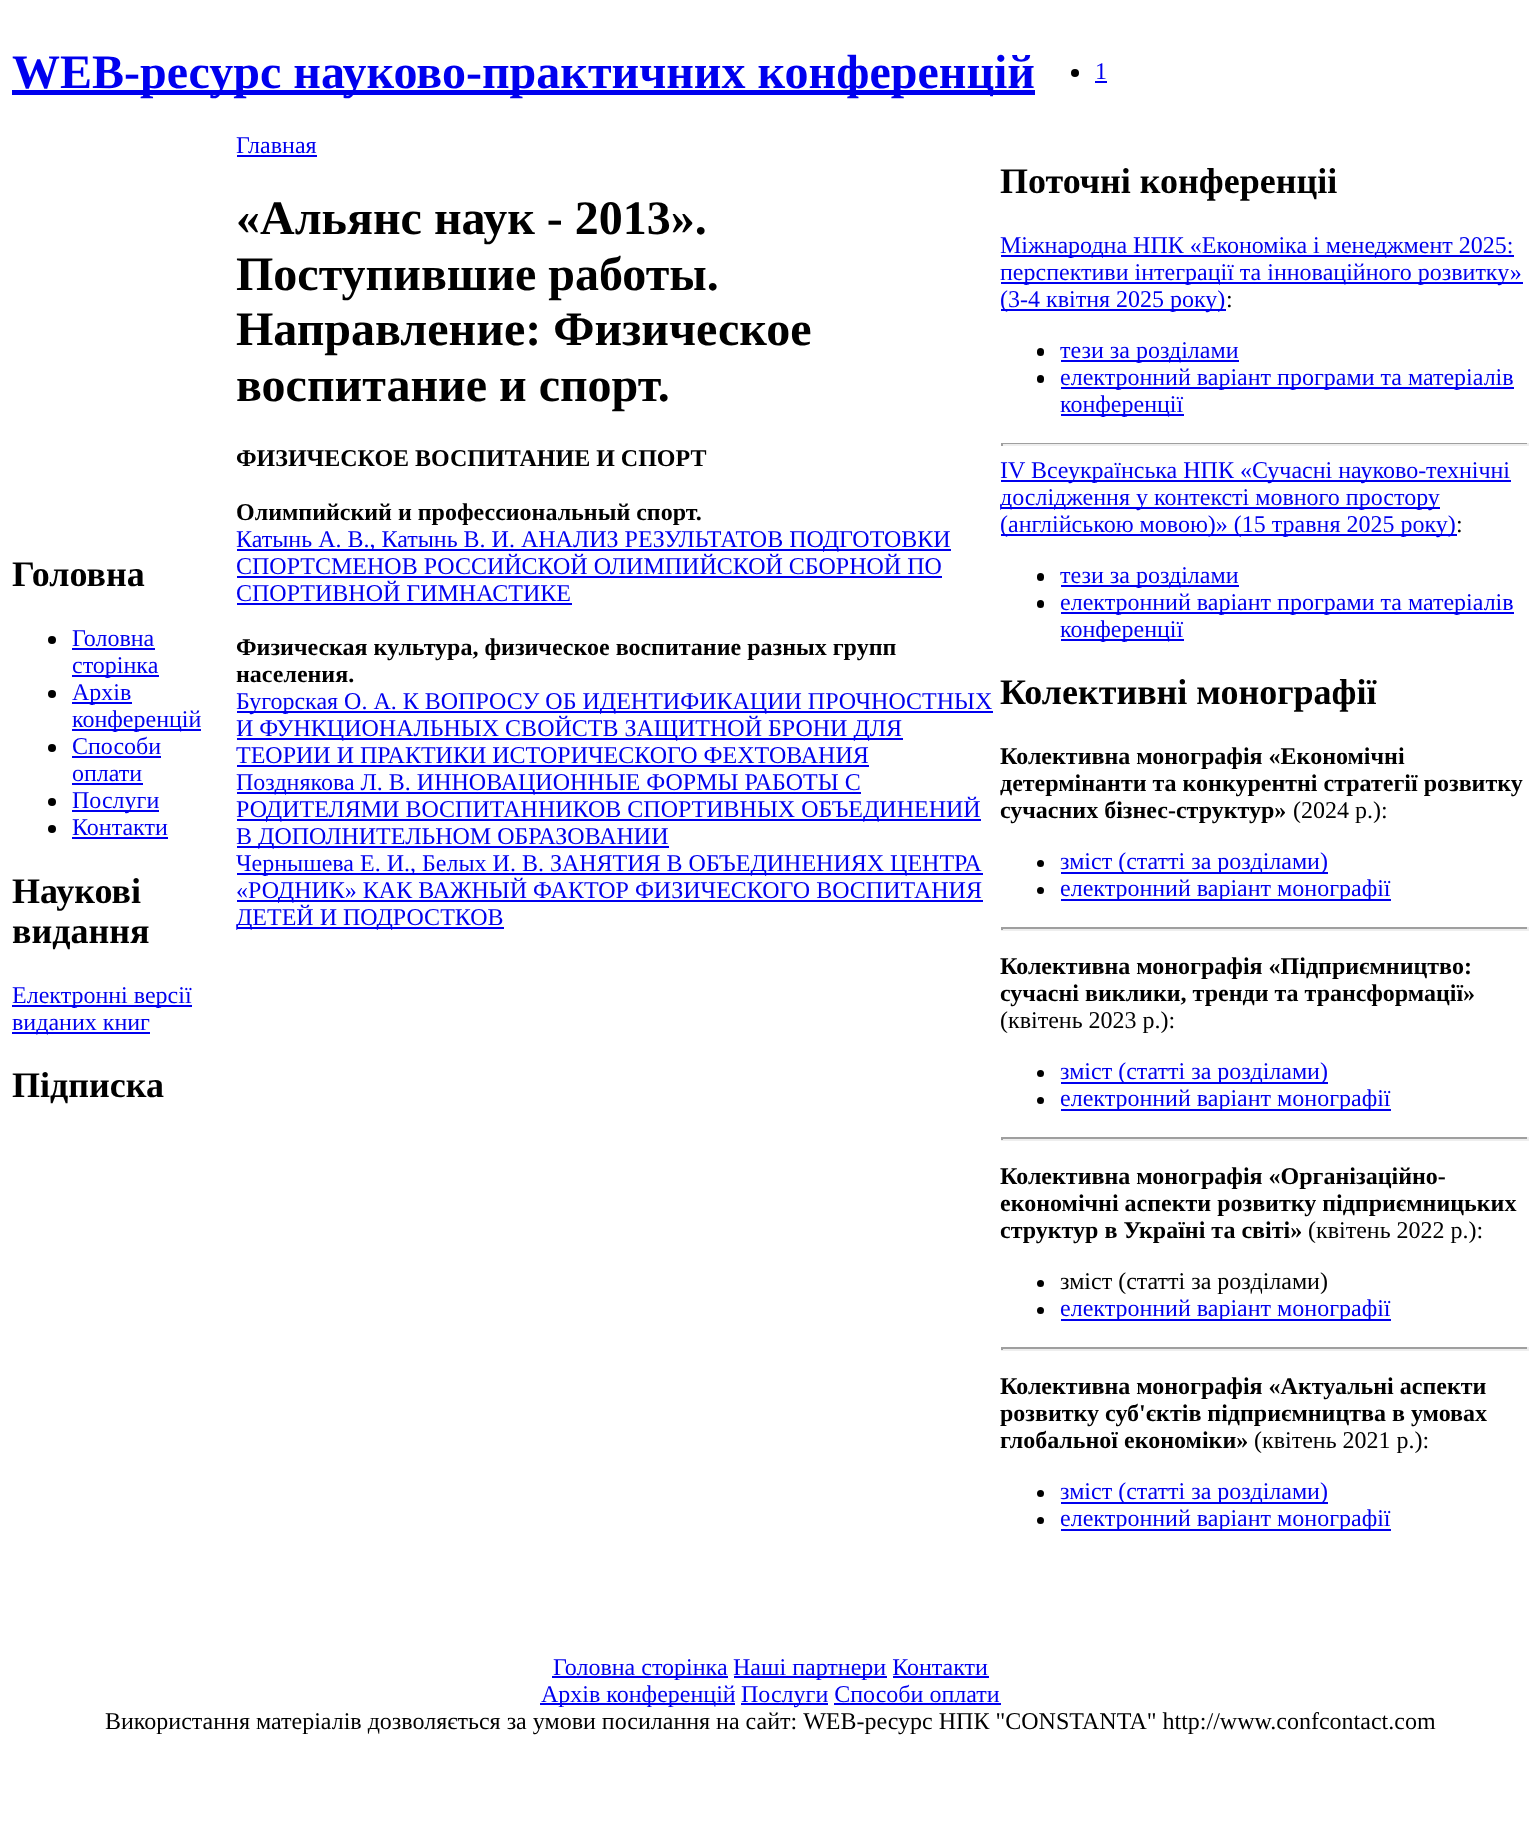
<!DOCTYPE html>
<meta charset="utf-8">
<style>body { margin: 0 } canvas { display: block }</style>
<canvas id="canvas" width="1540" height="1829"></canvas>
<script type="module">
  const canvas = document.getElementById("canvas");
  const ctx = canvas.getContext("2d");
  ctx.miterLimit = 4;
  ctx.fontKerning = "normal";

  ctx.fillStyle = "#ffffff";
  ctx.fillRect(0, 0, 1540, 1829);
  ctx.fillStyle = "#0000ee";
  ctx.fillRect(12, 90, 1023, 5);
  ctx.font = "bold 48px Liberation Serif";
  ctx.fillText("WEB-ресурс науково-практичних конференцій", 12, 88);
  ctx.fillStyle = "#000000";
  ctx.beginPath();
  ctx.arc(1075, 73, 4, 0, Math.PI * 2);
  ctx.fill();
  ctx.font = "24px Liberation Serif";
  ctx.fillStyle = "#0000ee";
  ctx.fillText("1", 1095, 79);
  ctx.fillRect(1095, 81, 12, 2);
  ctx.font = "bold 36px Liberation Serif";
  ctx.fillStyle = "#000000";
  ctx.fillText("Головна", 12, 586);
  ctx.beginPath();
  ctx.arc(52, 640, 4, 0, Math.PI * 2);
  ctx.fill();
  ctx.font = "24px Liberation Serif";
  ctx.fillStyle = "#0000ee";
  ctx.fillText("Головна", 72, 646);
  ctx.fillRect(72, 648, 83, 2);
  ctx.fillRect(72, 675, 87, 2);
  ctx.fillText("сторінка", 72, 673);
  ctx.fillStyle = "#000000";
  ctx.beginPath();
  ctx.arc(52, 694, 4, 0, Math.PI * 2);
  ctx.fill();
  ctx.fillStyle = "#0000ee";
  ctx.fillRect(72, 702, 60, 2);
  ctx.fillText("Архів", 72, 700);
  ctx.fillRect(72, 729, 129, 2);
  ctx.fillText("конференцій", 72, 727);
  ctx.fillStyle = "#000000";
  ctx.beginPath();
  ctx.arc(52, 748, 4, 0, Math.PI * 2);
  ctx.fill();
  ctx.fillStyle = "#0000ee";
  ctx.fillText("Способи", 72, 754);
  ctx.fillRect(72, 756, 89, 2);
  ctx.fillText("оплати", 72, 781);
  ctx.fillRect(72, 783, 71, 2);
  ctx.fillStyle = "#000000";
  ctx.beginPath();
  ctx.arc(52, 802, 4, 0, Math.PI * 2);
  ctx.fill();
  ctx.fillStyle = "#0000ee";
  ctx.fillRect(72, 810, 87, 2);
  ctx.fillText("Послуги", 72, 808);
  ctx.fillStyle = "#000000";
  ctx.beginPath();
  ctx.arc(52, 829, 4, 0, Math.PI * 2);
  ctx.fill();
  ctx.fillStyle = "#0000ee";
  ctx.fillText("Контакти", 72, 835);
  ctx.fillRect(72, 837, 96, 2);
  ctx.font = "bold 36px Liberation Serif";
  ctx.fillStyle = "#000000";
  ctx.fillText("Наукові", 12, 903);
  ctx.fillText("видання", 12, 943);
  ctx.fillStyle = "#0000ee";
  ctx.fillRect(12, 1005, 180, 2);
  ctx.font = "24px Liberation Serif";
  ctx.fillText("Електронні версії", 12, 1003);
  ctx.fillRect(12, 1032, 138, 2);
  ctx.fillText("виданих книг", 12, 1030);
  ctx.font = "bold 36px Liberation Serif";
  ctx.fillStyle = "#000000";
  ctx.fillText("Підписка", 12, 1097);
  ctx.font = "24px Liberation Serif";
  ctx.fillStyle = "#0000ee";
  ctx.fillText("Главная", 236, 153);
  ctx.fillRect(237, 155, 80, 2);
  ctx.font = "bold 48px Liberation Serif";
  ctx.fillStyle = "#000000";
  ctx.fillText("«Альянс наук - 2013».", 236, 234);
  ctx.fillText("Поступившие работы.", 236, 290);
  ctx.fillText("Направление: Физическое", 236, 345);
  ctx.fillText("воспитание и спорт.", 236, 401);
  ctx.font = "bold 24px Liberation Serif";
  ctx.fillText("ФИЗИЧЕСКОЕ ВОСПИТАНИЕ И СПОРТ", 236, 466);
  ctx.fillText("Олимпийский и профессиональный спорт.", 236, 520);
  ctx.fillStyle = "#0000ee";
  ctx.fillRect(237, 549, 714, 2);
  ctx.font = "24px Liberation Serif";
  ctx.fillText("Катынь А. В., Катынь В. И. АНАЛИЗ РЕЗУЛЬТАТОВ ПОДГОТОВКИ", 236, 547);
  ctx.fillText("СПОРТСМЕНОВ РОССИЙСКОЙ ОЛИМПИЙСКОЙ СБОРНОЙ ПО", 236, 574);
  ctx.fillRect(237, 576, 705, 2);
  ctx.fillText("СПОРТИВНОЙ ГИМНАСТИКЕ", 236, 601);
  ctx.fillRect(237, 603, 335, 2);
  ctx.font = "bold 24px Liberation Serif";
  ctx.fillStyle = "#000000";
  ctx.fillText("Физическая культура, физическое воспитание разных групп", 236, 655);
  ctx.fillText("населения.", 236, 682);
  ctx.fillStyle = "#0000ee";
  ctx.fillRect(237, 711, 756, 2);
  ctx.font = "24px Liberation Serif";
  ctx.fillText("Бугорская О. А. К ВОПРОСУ ОБ ИДЕНТИФИКАЦИИ ПРОЧНОСТНЫХ", 236, 709);
  ctx.fillRect(237, 738, 666, 2);
  ctx.fillText("И ФУНКЦИОНАЛЬНЫХ СВОЙСТВ ЗАЩИТНОЙ БРОНИ ДЛЯ", 236, 736);
  ctx.fillText("ТЕОРИИ И ПРАКТИКИ ИСТОРИЧЕСКОГО ФЕХТОВАНИЯ", 236, 763);
  ctx.fillRect(237, 765, 632, 2);
  ctx.fillRect(237, 792, 624, 2);
  ctx.fillText("Позднякова Л. В. ИННОВАЦИОННЫЕ ФОРМЫ РАБОТЫ С", 236, 790);
  ctx.fillRect(237, 819, 744, 2);
  ctx.fillText("РОДИТЕЛЯМИ ВОСПИТАННИКОВ СПОРТИВНЫХ ОБЪЕДИНЕНИЙ", 236, 817);
  ctx.fillRect(237, 846, 432, 2);
  ctx.fillText("В ДОПОЛНИТЕЛЬНОМ ОБРАЗОВАНИИ", 236, 844);
  ctx.fillRect(237, 873, 746, 2);
  ctx.fillText("Чернышева Е. И., Белых И. В. ЗАНЯТИЯ В ОБЪЕДИНЕНИЯХ ЦЕНТРА", 236, 871);
  ctx.fillRect(237, 900, 746, 2);
  ctx.fillText("«РОДНИК» КАК ВАЖНЫЙ ФАКТОР ФИЗИЧЕСКОГО ВОСПИТАНИЯ", 236, 898);
  ctx.fillRect(237, 927, 267, 2);
  ctx.fillText("ДЕТЕЙ И ПОДРОСТКОВ", 236, 925);
  ctx.font = "bold 36px Liberation Serif";
  ctx.fillStyle = "#000000";
  ctx.fillText("Поточні конференціі", 1000, 193);
  ctx.fillStyle = "#0000ee";
  ctx.fillRect(1001, 255, 513, 2);
  ctx.font = "24px Liberation Serif";
  ctx.fillText("Міжнародна НПК «Економіка і менеджмент 2025:", 1000, 253);
  ctx.fillRect(1001, 282, 522, 2);
  ctx.fillText("перспективи інтеграції та інноваційного розвитку»", 1000, 280);
  ctx.fillRect(1001, 309, 225, 2);
  ctx.fillText("(3-4 квітня 2025 року)", 1000, 307);
  ctx.fillStyle = "#000000";
  ctx.fillText(":", 1226, 307);
  ctx.beginPath();
  ctx.roundRect(1037, 348, 7, 8, 3.5);
  ctx.fill();
  ctx.fillStyle = "#0000ee";
  ctx.fillRect(1061, 360, 178, 2);
  ctx.fillText("тези за розділами", 1060, 358);
  ctx.fillStyle = "#000000";
  ctx.beginPath();
  ctx.roundRect(1037, 375, 7, 8, 3.5);
  ctx.fill();
  ctx.fillStyle = "#0000ee";
  ctx.fillRect(1061, 387, 453, 2);
  ctx.fillText("електронний варіант програми та матеріалів", 1060, 385);
  ctx.fillRect(1061, 414, 123, 2);
  ctx.fillText("конференції", 1060, 412);
  ctx.fillStyle = "#9f9f9f";
  ctx.fillRect(1001, 443, 528, 1);
  ctx.fillStyle = "#eeeeee";
  ctx.fillRect(1527, 443, 2, 3);
  ctx.fillRect(1001, 444, 528, 2);
  ctx.fillStyle = "#9f9f9f";
  ctx.fillRect(1001, 443, 2, 3);
  ctx.fillStyle = "#0000ee";
  ctx.fillRect(1001, 480, 510, 2);
  ctx.fillText("IV Всеукраїнська НПК «Сучасні науково-технічні", 1000, 478);
  ctx.fillRect(1001, 507, 439, 2);
  ctx.fillText("дослідження у контексті мовного простору", 1000, 505);
  ctx.fillRect(1001, 534, 456, 2);
  ctx.fillText("(англійською мовою)» (15 травня 2025 року)", 1000, 532);
  ctx.fillStyle = "#000000";
  ctx.fillText(":", 1456, 532);
  ctx.beginPath();
  ctx.roundRect(1037, 573, 7, 8, 3.5);
  ctx.fill();
  ctx.fillStyle = "#0000ee";
  ctx.fillRect(1061, 585, 178, 2);
  ctx.fillText("тези за розділами", 1060, 583);
  ctx.fillStyle = "#000000";
  ctx.beginPath();
  ctx.roundRect(1037, 600, 7, 8, 3.5);
  ctx.fill();
  ctx.fillStyle = "#0000ee";
  ctx.fillRect(1061, 612, 453, 2);
  ctx.fillText("електронний варіант програми та матеріалів", 1060, 610);
  ctx.fillRect(1061, 639, 123, 2);
  ctx.fillText("конференції", 1060, 637);
  ctx.font = "bold 36px Liberation Serif";
  ctx.fillStyle = "#000000";
  ctx.fillText("Колективні монографії", 1000, 704);
  ctx.font = "bold 24px Liberation Serif";
  ctx.fillText("Колективна монографiя «Економічні", 1000, 764);
  ctx.fillText("детермінанти та конкурентні стратегії розвитку", 1000, 791);
  ctx.fillText("сучасних бізнес-структур»", 1000, 818);
  ctx.font = "24px Liberation Serif";
  ctx.fillText("(2024 р.):", 1293, 818);
  ctx.beginPath();
  ctx.arc(1040.5, 863.5, 3.5, 0, Math.PI * 2);
  ctx.fill();
  ctx.fillStyle = "#0000ee";
  ctx.fillRect(1061, 872, 267, 2);
  ctx.fillText("зміст (статті за розділами)", 1060, 869);
  ctx.fillStyle = "#000000";
  ctx.beginPath();
  ctx.arc(1040.5, 890.5, 3.5, 0, Math.PI * 2);
  ctx.fill();
  ctx.fillStyle = "#0000ee";
  ctx.fillRect(1061, 899, 330, 2);
  ctx.fillText("електронний варіант монографії", 1060, 896);
  ctx.fillStyle = "#9f9f9f";
  ctx.fillRect(1001, 927, 528, 2);
  ctx.fillStyle = "#eeeeee";
  ctx.fillRect(1527, 927, 2, 3);
  ctx.fillRect(1001, 929, 528, 2);
  ctx.fillStyle = "#9f9f9f";
  ctx.fillRect(1001, 927, 2, 3);
  ctx.font = "bold 24px Liberation Serif";
  ctx.fillStyle = "#000000";
  ctx.fillText("Колективна монографiя «Підприємництво:", 1000, 974);
  ctx.fillText("сучасні виклики, тренди та трансформації»", 1000, 1001);
  ctx.font = "24px Liberation Serif";
  ctx.fillText("(квiтень 2023 р.):", 1000, 1028);
  ctx.beginPath();
  ctx.arc(1040.5, 1073.5, 3.5, 0, Math.PI * 2);
  ctx.fill();
  ctx.fillStyle = "#0000ee";
  ctx.fillRect(1061, 1082, 267, 2);
  ctx.fillText("зміст (статті за розділами)", 1060, 1079);
  ctx.fillStyle = "#000000";
  ctx.beginPath();
  ctx.arc(1040.5, 1100.5, 3.5, 0, Math.PI * 2);
  ctx.fill();
  ctx.fillStyle = "#0000ee";
  ctx.fillRect(1061, 1109, 330, 2);
  ctx.fillText("електронний варіант монографії", 1060, 1106);
  ctx.fillStyle = "#9f9f9f";
  ctx.fillRect(1001, 1137, 528, 2);
  ctx.fillStyle = "#eeeeee";
  ctx.fillRect(1527, 1137, 2, 3);
  ctx.fillRect(1001, 1139, 528, 2);
  ctx.fillStyle = "#9f9f9f";
  ctx.fillRect(1001, 1137, 2, 3);
  ctx.font = "bold 24px Liberation Serif";
  ctx.fillStyle = "#000000";
  ctx.fillText("Колективна монографiя «Організаційно-", 1000, 1184);
  ctx.fillText("економічні аспекти розвитку підприємницьких", 1000, 1211);
  ctx.fillText("структур в Україні та світі»", 1000, 1238);
  ctx.font = "24px Liberation Serif";
  ctx.fillText("(квiтень 2022 р.):", 1308, 1238);
  ctx.beginPath();
  ctx.arc(1040.5, 1283.5, 3.5, 0, Math.PI * 2);
  ctx.fill();
  ctx.fillText("зміст (статті за розділами)", 1060, 1289);
  ctx.beginPath();
  ctx.arc(1040.5, 1310.5, 3.5, 0, Math.PI * 2);
  ctx.fill();
  ctx.fillStyle = "#0000ee";
  ctx.fillRect(1061, 1319, 330, 2);
  ctx.fillText("електронний варіант монографії", 1060, 1316);
  ctx.fillStyle = "#9f9f9f";
  ctx.fillRect(1001, 1347, 528, 2);
  ctx.fillStyle = "#eeeeee";
  ctx.fillRect(1527, 1347, 2, 3);
  ctx.fillRect(1001, 1349, 528, 2);
  ctx.fillStyle = "#9f9f9f";
  ctx.fillRect(1001, 1347, 2, 3);
  ctx.font = "bold 24px Liberation Serif";
  ctx.fillStyle = "#000000";
  ctx.fillText("Колективна монографiя «Актуальні аспекти", 1000, 1394);
  ctx.fillText("розвитку суб'єктів підприємництва в умовах", 1000, 1421);
  ctx.fillText("глобальної економіки»", 1000, 1448);
  ctx.font = "24px Liberation Serif";
  ctx.fillText("(квiтень 2021 р.):", 1254, 1448);
  ctx.beginPath();
  ctx.arc(1040.5, 1493.5, 3.5, 0, Math.PI * 2);
  ctx.fill();
  ctx.fillStyle = "#0000ee";
  ctx.fillRect(1061, 1502, 267, 2);
  ctx.fillText("зміст (статті за розділами)", 1060, 1499);
  ctx.fillStyle = "#000000";
  ctx.beginPath();
  ctx.arc(1040.5, 1520.5, 3.5, 0, Math.PI * 2);
  ctx.fill();
  ctx.fillStyle = "#0000ee";
  ctx.fillRect(1061, 1529, 330, 2);
  ctx.fillText("електронний варіант монографії", 1060, 1526);
  ctx.fillRect(552, 1676, 176, 2);
  ctx.fillText("Головна сторінка", 553, 1675);
  ctx.fillRect(734, 1676, 153, 2);
  ctx.fillText("Наші партнери Контакти", 733, 1675);
  ctx.fillRect(893, 1676, 96, 2);
  ctx.fillRect(540, 1703, 195, 2);
  ctx.fillText("Архів конференцій", 541, 1702);
  ctx.fillRect(741, 1703, 87, 2);
  ctx.fillText("Послуги Способи оплати", 741, 1702);
  ctx.fillRect(834, 1703, 167, 2);
  ctx.fillStyle = "#000000";
  ctx.fillText("Використання матеріалів дозволяється за умови посилання на сайт: WEB-ресурс НПК \"CONSTANTA\" http://www.confcontact.com", 105, 1729);
</script>
